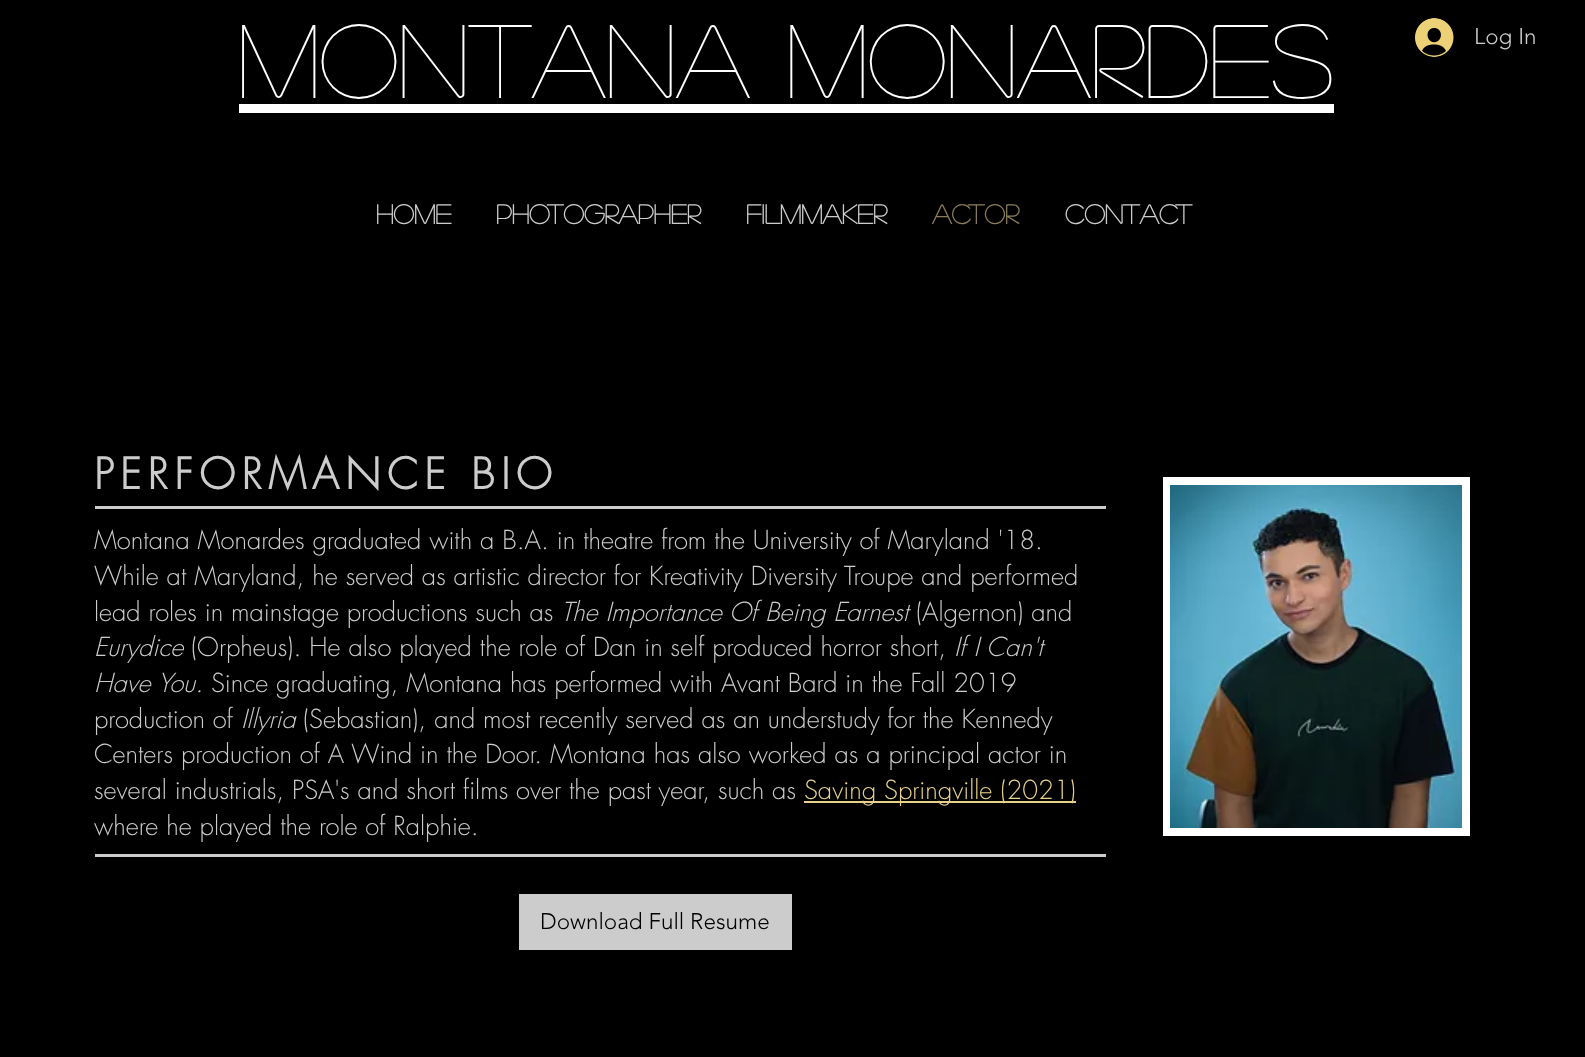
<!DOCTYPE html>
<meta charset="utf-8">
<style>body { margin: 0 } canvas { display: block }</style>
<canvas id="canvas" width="1585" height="1057"></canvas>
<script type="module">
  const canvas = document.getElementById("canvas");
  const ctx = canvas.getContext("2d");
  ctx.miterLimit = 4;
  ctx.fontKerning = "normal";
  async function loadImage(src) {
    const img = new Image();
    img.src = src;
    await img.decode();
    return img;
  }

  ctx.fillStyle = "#000000";
  ctx.fillRect(0, 0, 1585, 1057);
  ctx.font = "103.5px 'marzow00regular'";
  ctx.fillStyle = "#ffffff";
  ctx.fillText("Montana Monardes", 238, 98);
  ctx.fillRect(239, 104, 1095, 9);
  ctx.drawImage(await loadImage("img1.png"), 1415, 18, 39, 39);
  ctx.font = "300 22.5px 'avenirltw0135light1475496'";
  ctx.fillStyle = "#cccccc";
  ctx.fillText("Log In", 1474, 44);
  ctx.font = "bold 27px 'marzow00regular'";
  ctx.fillText("Home", 376, 224);
  ctx.fillText("Photographer", 496, 224);
  ctx.fillText("Filmmaker", 746, 224);
  ctx.fillStyle = "#8a7e5a";
  ctx.fillText("Actor", 932, 224);
  ctx.fillStyle = "#cccccc";
  ctx.fillText("Contact", 1065, 224);
  ctx.letterSpacing = "6.25px";
  ctx.font = "bold 42px futura";
  ctx.fillText("PERFORMANCE BIO", 94, 489);
  ctx.fillRect(95, 506, 1011, 3);
  ctx.fillStyle = "#ffffff";
  ctx.fillRect(1163, 477, 307, 359);
  ctx.drawImage(await loadImage("img2.png"), 1170, 485, 293, 343);
  ctx.letterSpacing = "0px";
  ctx.font = "300 25.5px futura";
  ctx.fillStyle = "#cccccc";
  ctx.fillText("Montana Monardes graduated with a B.A. in theatre from the University of Maryland '18.", 94, 549);
  ctx.fillText("While at Maryland, he served as artistic director for Kreativity Diversity Troupe and performed", 94, 585);
  ctx.fillText("lead roles in mainstage productions such as", 94, 621);
  ctx.font = "italic 300 25.5px futura";
  ctx.fillText("The Importance Of Being Earnest", 561, 621);
  ctx.font = "300 25.5px futura";
  ctx.fillText("(Algernon) and", 916, 621);
  ctx.font = "italic 300 25.5px futura";
  ctx.fillText("Eurydice", 94, 656);
  ctx.font = "300 25.5px futura";
  ctx.fillText("(Orpheus). He also played the role of Dan in self produced horror short,", 191, 656);
  ctx.font = "italic 300 25.5px futura";
  ctx.fillText("If I Can't", 954, 656);
  ctx.fillText("Have You.", 94, 692);
  ctx.font = "300 25.5px futura";
  ctx.fillText("Since graduating, Montana has performed with Avant Bard in the Fall 2019", 211, 692);
  ctx.fillText("production of", 94, 728);
  ctx.font = "italic 300 25.5px futura";
  ctx.fillText("Illyria", 241, 728);
  ctx.font = "300 25.5px futura";
  ctx.fillText("(Sebastian), and most recently served as an understudy for the Kennedy", 303, 728);
  ctx.fillText("Centers production of A Wind in the Door. Montana has also worked as a principal actor in", 94, 763);
  ctx.fillText("several industrials, PSA's and short films over the past year, such as", 94, 799);
  ctx.fillStyle = "#e8d28b";
  ctx.fillRect(804, 801, 272, 2);
  ctx.fillText("Saving Springville (2021)", 804, 799);
  ctx.fillStyle = "#cccccc";
  ctx.fillText("where he played the role of Ralphie.", 94, 835);
  ctx.fillRect(95, 854, 1011, 3);
  ctx.fillRect(519, 894, 273, 56);
  ctx.font = "300 22.5px 'avenirltw0135light1475496'";
  ctx.fillStyle = "#000000";
  ctx.fillText("Download Full Resume", 540, 929);
</script>
